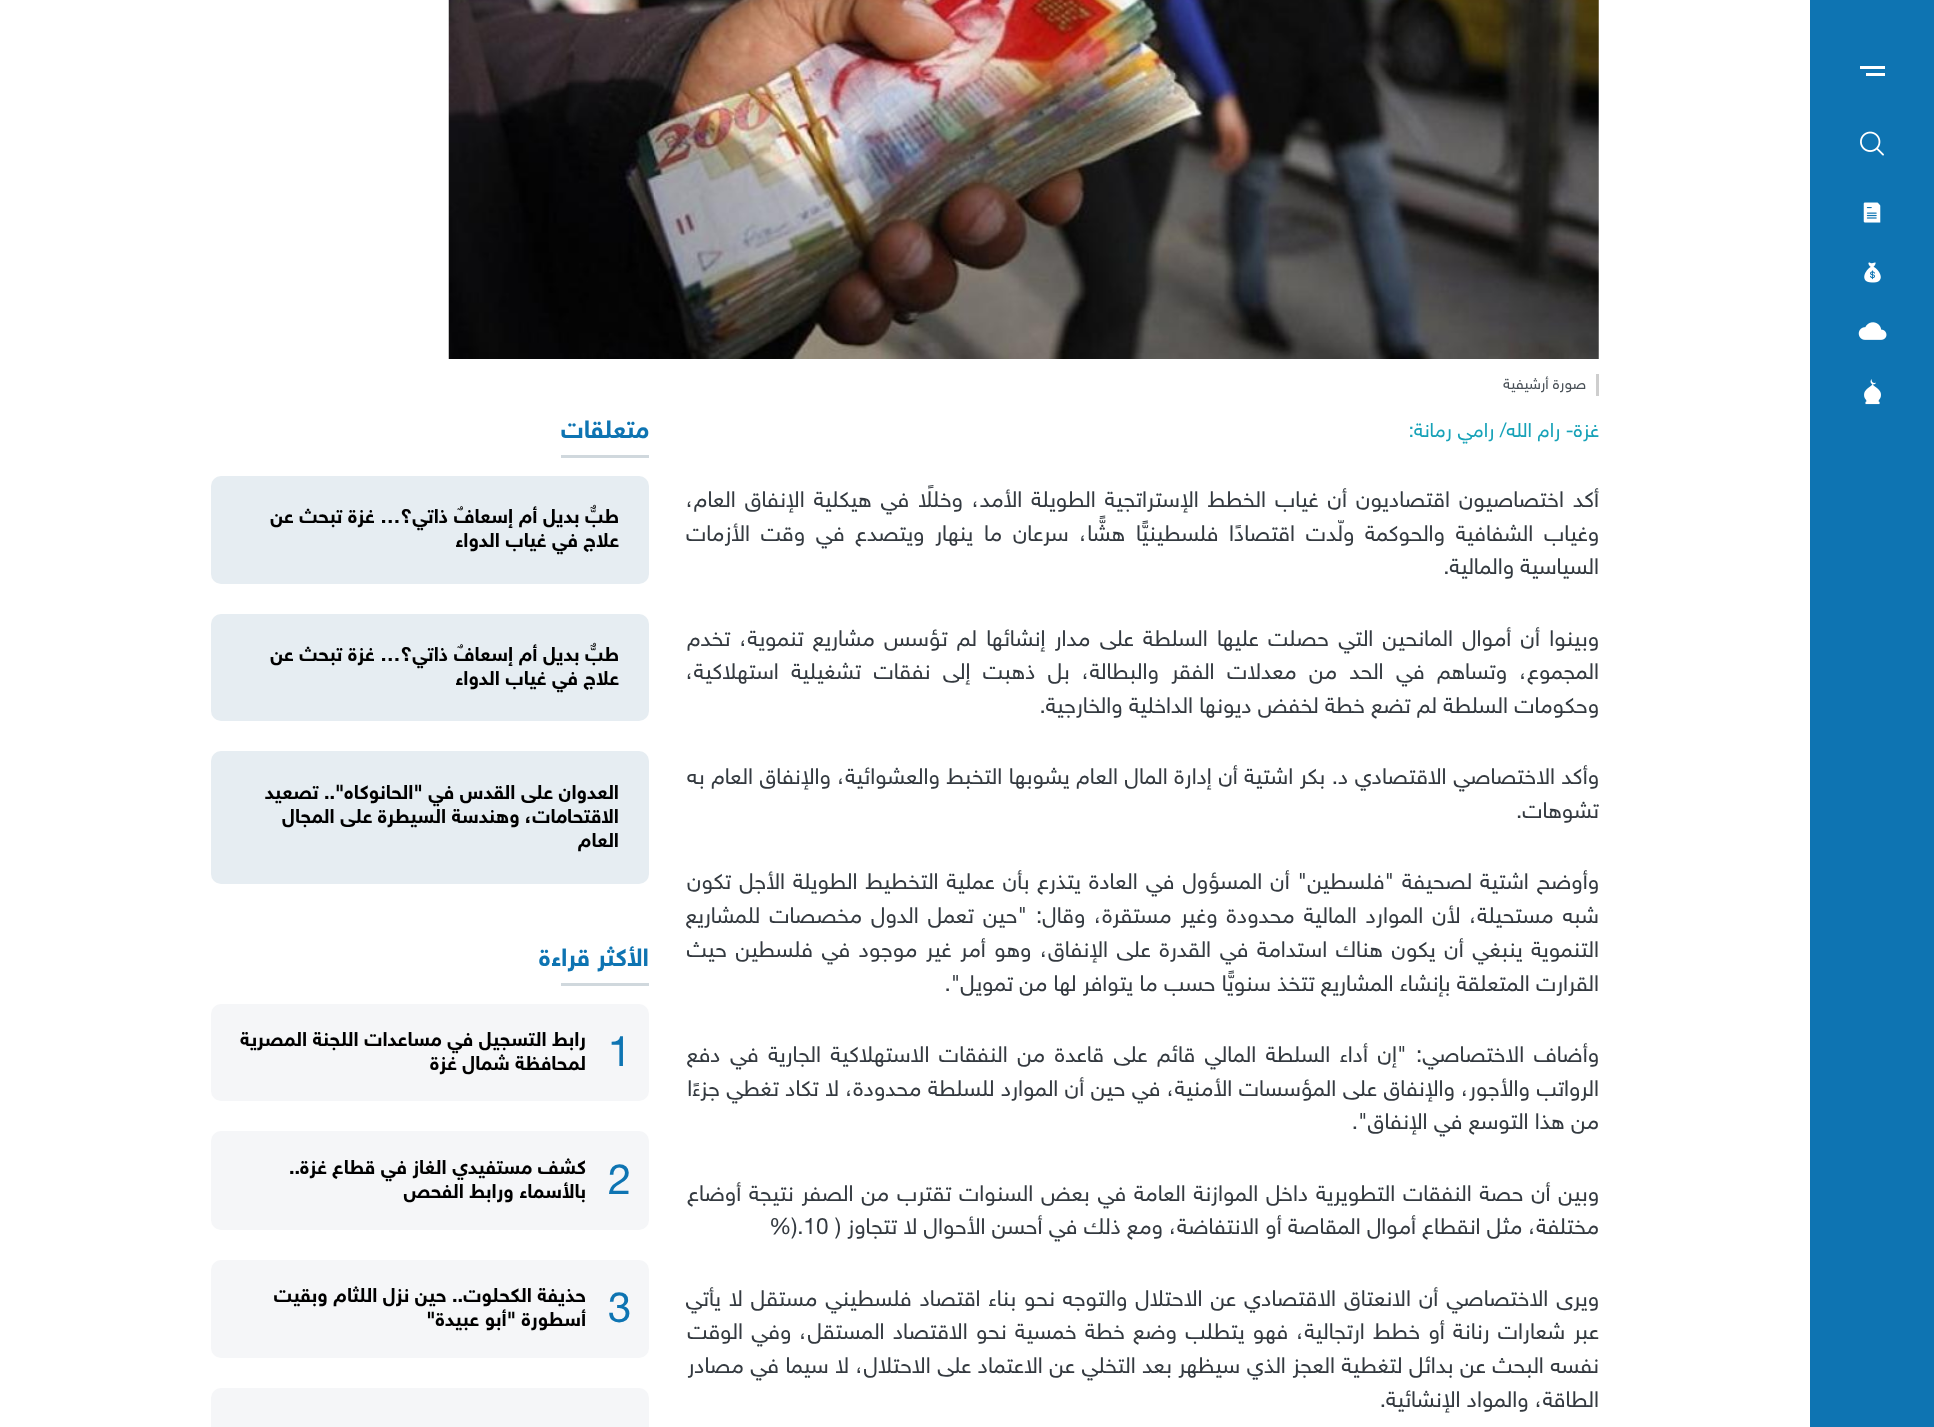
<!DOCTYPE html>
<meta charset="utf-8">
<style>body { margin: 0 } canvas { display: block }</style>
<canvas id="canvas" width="1934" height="1427"></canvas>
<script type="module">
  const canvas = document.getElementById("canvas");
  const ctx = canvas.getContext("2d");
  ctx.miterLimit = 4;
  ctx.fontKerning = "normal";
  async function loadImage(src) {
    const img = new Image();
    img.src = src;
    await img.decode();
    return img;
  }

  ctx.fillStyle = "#ffffff";
  ctx.fillRect(0, 0, 1934, 1427);
  ctx.fillStyle = "#0e74b2";
  ctx.fillRect(1810, 0, 124, 1427);
  ctx.fillStyle = "#ffffff";
  ctx.fillRect(1860, 66, 25, 3);
  ctx.fillRect(1866, 73, 19, 3);
  ctx.drawImage(await loadImage("img1.png"), 1860, 131, 24, 25);
  ctx.drawImage(await loadImage("img2.png"), 1863, 202, 18, 21);
  ctx.drawImage(await loadImage("img3.png"), 1864, 262, 17, 21);
  ctx.drawImage(await loadImage("img4.png"), 1858, 322, 29, 18);
  ctx.drawImage(await loadImage("img5.png"), 1864, 379, 17, 26);
  ctx.drawImage(await loadImage("img6.png"), 448, 0, 1151, 359);
  ctx.fillStyle = "#cecece";
  ctx.fillRect(1596, 374, 3, 22);
  ctx.direction = "rtl";
  ctx.font = "15px 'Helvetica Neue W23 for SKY'";
  ctx.fillStyle = "#495057";
  ctx.fillText("صورة أرشيفية", 1586, 389);
  ctx.font = "20px 'Helvetica Neue W23 for SKY'";
  ctx.fillStyle = "#17a2b8";
  ctx.fillText("غزة- رام الله/ رامي رمانة:", 1599, 437);
  ctx.wordSpacing = "2.75px";
  ctx.font = "22.5px 'Helvetica Neue W23 for SKY'";
  ctx.fillStyle = "#343a40";
  ctx.fillText("أكد اختصاصيون اقتصاديون أن غياب الخطط الإستراتجية الطويلة الأمد، وخللًا في هيكلية الإنفاق العام،", 1599, 507);
  ctx.wordSpacing = "4.5px";
  ctx.fillText("وغياب الشفافية والحوكمة ولّدت اقتصادًا فلسطينيًّا هشًّا، سرعان ما ينهار ويتصدع في وقت الأزمات", 1599, 541);
  ctx.wordSpacing = "0px";
  ctx.fillText("السياسية والمالية.", 1599, 574);
  ctx.wordSpacing = "3px";
  ctx.fillText("وبينوا أن أموال المانحين التي حصلت عليها السلطة على مدار إنشائها لم تؤسس مشاريع تنموية، تخدم", 1599, 646);
  ctx.wordSpacing = "6.1px";
  ctx.fillText("المجموع، وتساهم في الحد من معدلات الفقر والبطالة، بل ذهبت إلى نفقات تشغيلية استهلاكية،", 1599, 679);
  ctx.wordSpacing = "0px";
  ctx.fillText("وحكومات السلطة لم تضع خطة لخفض ديونها الداخلية والخارجية.", 1599, 713);
  ctx.wordSpacing = "0.3px";
  ctx.fillText("وأكد الاختصاصي الاقتصادي د. بكر اشتية أن إدارة المال العام يشوبها التخبط والعشوائية، والإنفاق العام به", 1599, 784);
  ctx.wordSpacing = "0px";
  ctx.fillText("تشوهات.", 1599, 818);
  ctx.wordSpacing = "1.75px";
  ctx.fillText("وأوضح اشتية لصحيفة \"فلسطين\" أن المسؤول في العادة يتذرع بأن عملية التخطيط الطويلة الأجل تكون", 1599, 889);
  ctx.wordSpacing = "2.75px";
  ctx.fillText("شبه مستحيلة، لأن الموارد المالية محدودة وغير مستقرة، وقال: \"حين تعمل الدول مخصصات للمشاريع", 1599, 923);
  ctx.wordSpacing = "2.4px";
  ctx.fillText("التنموية ينبغي أن يكون هناك استدامة في القدرة على الإنفاق، وهو أمر غير موجود في فلسطين حيث", 1599, 957);
  ctx.wordSpacing = "0px";
  ctx.fillText("القرارت المتعلقة بإنشاء المشاريع تتخذ سنويًّا حسب ما يتوافر لها من تمويل\".", 1599, 991);
  ctx.wordSpacing = "3.25px";
  ctx.fillText("وأضاف الاختصاصي: \"إن أداء السلطة المالي قائم على قاعدة من النفقات الاستهلاكية الجارية في دفع", 1599, 1062);
  ctx.wordSpacing = "0.25px";
  ctx.fillText("الرواتب والأجور، والإنفاق على المؤسسات الأمنية، في حين أن الموارد للسلطة محدودة، لا تكاد تغطي جزءًا", 1599, 1096);
  ctx.wordSpacing = "0px";
  ctx.fillText("من هذا التوسع في الإنفاق\".", 1599, 1129);
  ctx.wordSpacing = "1.5px";
  ctx.fillText("وبين أن حصة النفقات التطويرية داخل الموازنة العامة في بعض السنوات تقترب من الصفر نتيجة أوضاع", 1599, 1201);
  ctx.wordSpacing = "0px";
  ctx.fillText("مختلفة، مثل انقطاع أموال المقاصة أو الانتفاضة، ومع ذلك في أحسن الأحوال لا تتجاوز (", 1599, 1234);
  ctx.direction = "ltr";
  ctx.fillText("%).10", 769, 1234);
  ctx.wordSpacing = "1.75px";
  ctx.direction = "rtl";
  ctx.fillText("ويرى الاختصاصي أن الانعتاق الاقتصادي عن الاحتلال والتوجه نحو بناء اقتصاد فلسطيني مستقل لا يأتي", 1599, 1306);
  ctx.wordSpacing = "2.1px";
  ctx.fillText("عبر شعارات رنانة أو خطط ارتجالية، فهو يتطلب وضع خطة خمسية نحو الاقتصاد المستقل، وفي الوقت", 1599, 1339);
  ctx.wordSpacing = "0.3px";
  ctx.fillText("نفسه البحث عن بدائل لتغطية العجز الذي سيظهر بعد التخلي عن الاعتماد على الاحتلال، لا سيما في مصادر", 1599, 1373);
  ctx.wordSpacing = "0px";
  ctx.fillText("الطاقة، والمواد الإنشائية.", 1599, 1407);
  ctx.font = "bold 25px 'Helvetica Neue W23 for SKY'";
  ctx.fillStyle = "#0e74b2";
  ctx.fillText("متعلقات", 649, 438);
  ctx.fillStyle = "#d0d8dd";
  ctx.fillRect(561, 455, 88, 3);
  ctx.fillStyle = "#e6edf2";
  ctx.beginPath();
  ctx.roundRect(211, 476, 438, 108, 10);
  ctx.fill();
  ctx.font = "bold 20px 'Helvetica Neue W23 for SKY'";
  ctx.fillStyle = "#000000";
  ctx.fillText("طبٌّ بديل أم إسعافٌ ذاتي؟… غزة تبحث عن", 619, 523);
  ctx.fillText("علاج في غياب الدواء", 619, 547);
  ctx.fillStyle = "#e6edf2";
  ctx.beginPath();
  ctx.roundRect(211, 614, 438, 107, 10);
  ctx.fill();
  ctx.fillStyle = "#000000";
  ctx.fillText("طبٌّ بديل أم إسعافٌ ذاتي؟… غزة تبحث عن", 619, 661);
  ctx.fillText("علاج في غياب الدواء", 619, 685);
  ctx.fillStyle = "#e6edf2";
  ctx.beginPath();
  ctx.roundRect(211, 751, 438, 133, 10);
  ctx.fill();
  ctx.fillStyle = "#000000";
  ctx.fillText("العدوان على القدس في \"الحانوكاه\".. تصعيد", 619, 799);
  ctx.fillText("الاقتحامات، وهندسة السيطرة على المجال", 619, 823);
  ctx.fillText("العام", 619, 847);
  ctx.font = "bold 25px 'Helvetica Neue W23 for SKY'";
  ctx.fillStyle = "#0e74b2";
  ctx.fillText("الأكثر", 649, 966);
  ctx.fillText("قراءة", 590, 966);
  ctx.fillStyle = "#d0d8dd";
  ctx.fillRect(561, 983, 88, 3);
  ctx.fillStyle = "#f5f6f8";
  ctx.beginPath();
  ctx.roundRect(211, 1004, 438, 97, 10);
  ctx.fill();
  ctx.direction = "ltr";
  ctx.font = "42px 'Helvetica Neue W23 for SKY'";
  ctx.fillStyle = "#0e74b2";
  ctx.fillText("1", 608, 1066);
  ctx.direction = "rtl";
  ctx.font = "bold 20px 'Helvetica Neue W23 for SKY'";
  ctx.fillStyle = "#000000";
  ctx.fillText("رابط التسجيل في مساعدات اللجنة المصرية", 586, 1046);
  ctx.fillText("لمحافظة شمال غزة", 586, 1070);
  ctx.fillStyle = "#f5f6f8";
  ctx.beginPath();
  ctx.roundRect(211, 1131, 438, 99, 10);
  ctx.fill();
  ctx.direction = "ltr";
  ctx.font = "42px 'Helvetica Neue W23 for SKY'";
  ctx.fillStyle = "#0e74b2";
  ctx.fillText("2", 608, 1194);
  ctx.direction = "rtl";
  ctx.font = "bold 20px 'Helvetica Neue W23 for SKY'";
  ctx.fillStyle = "#000000";
  ctx.fillText("كشف مستفيدي الغاز في قطاع غزة..", 586, 1174);
  ctx.fillText("بالأسماء ورابط الفحص", 586, 1198);
  ctx.fillStyle = "#f5f6f8";
  ctx.beginPath();
  ctx.roundRect(211, 1260, 438, 98, 10);
  ctx.fill();
  ctx.direction = "ltr";
  ctx.font = "42px 'Helvetica Neue W23 for SKY'";
  ctx.fillStyle = "#0e74b2";
  ctx.fillText("3", 608, 1322);
  ctx.direction = "rtl";
  ctx.font = "bold 20px 'Helvetica Neue W23 for SKY'";
  ctx.fillStyle = "#000000";
  ctx.fillText("حذيفة الكحلوت.. حين نزل اللثام وبقيت", 586, 1302);
  ctx.fillText("أسطورة \"أبو عبيدة\"", 586, 1326);
  ctx.fillStyle = "#f5f6f8";
  ctx.beginPath();
  ctx.roundRect(211, 1388, 438, 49, 10);
  ctx.fill();
</script>
